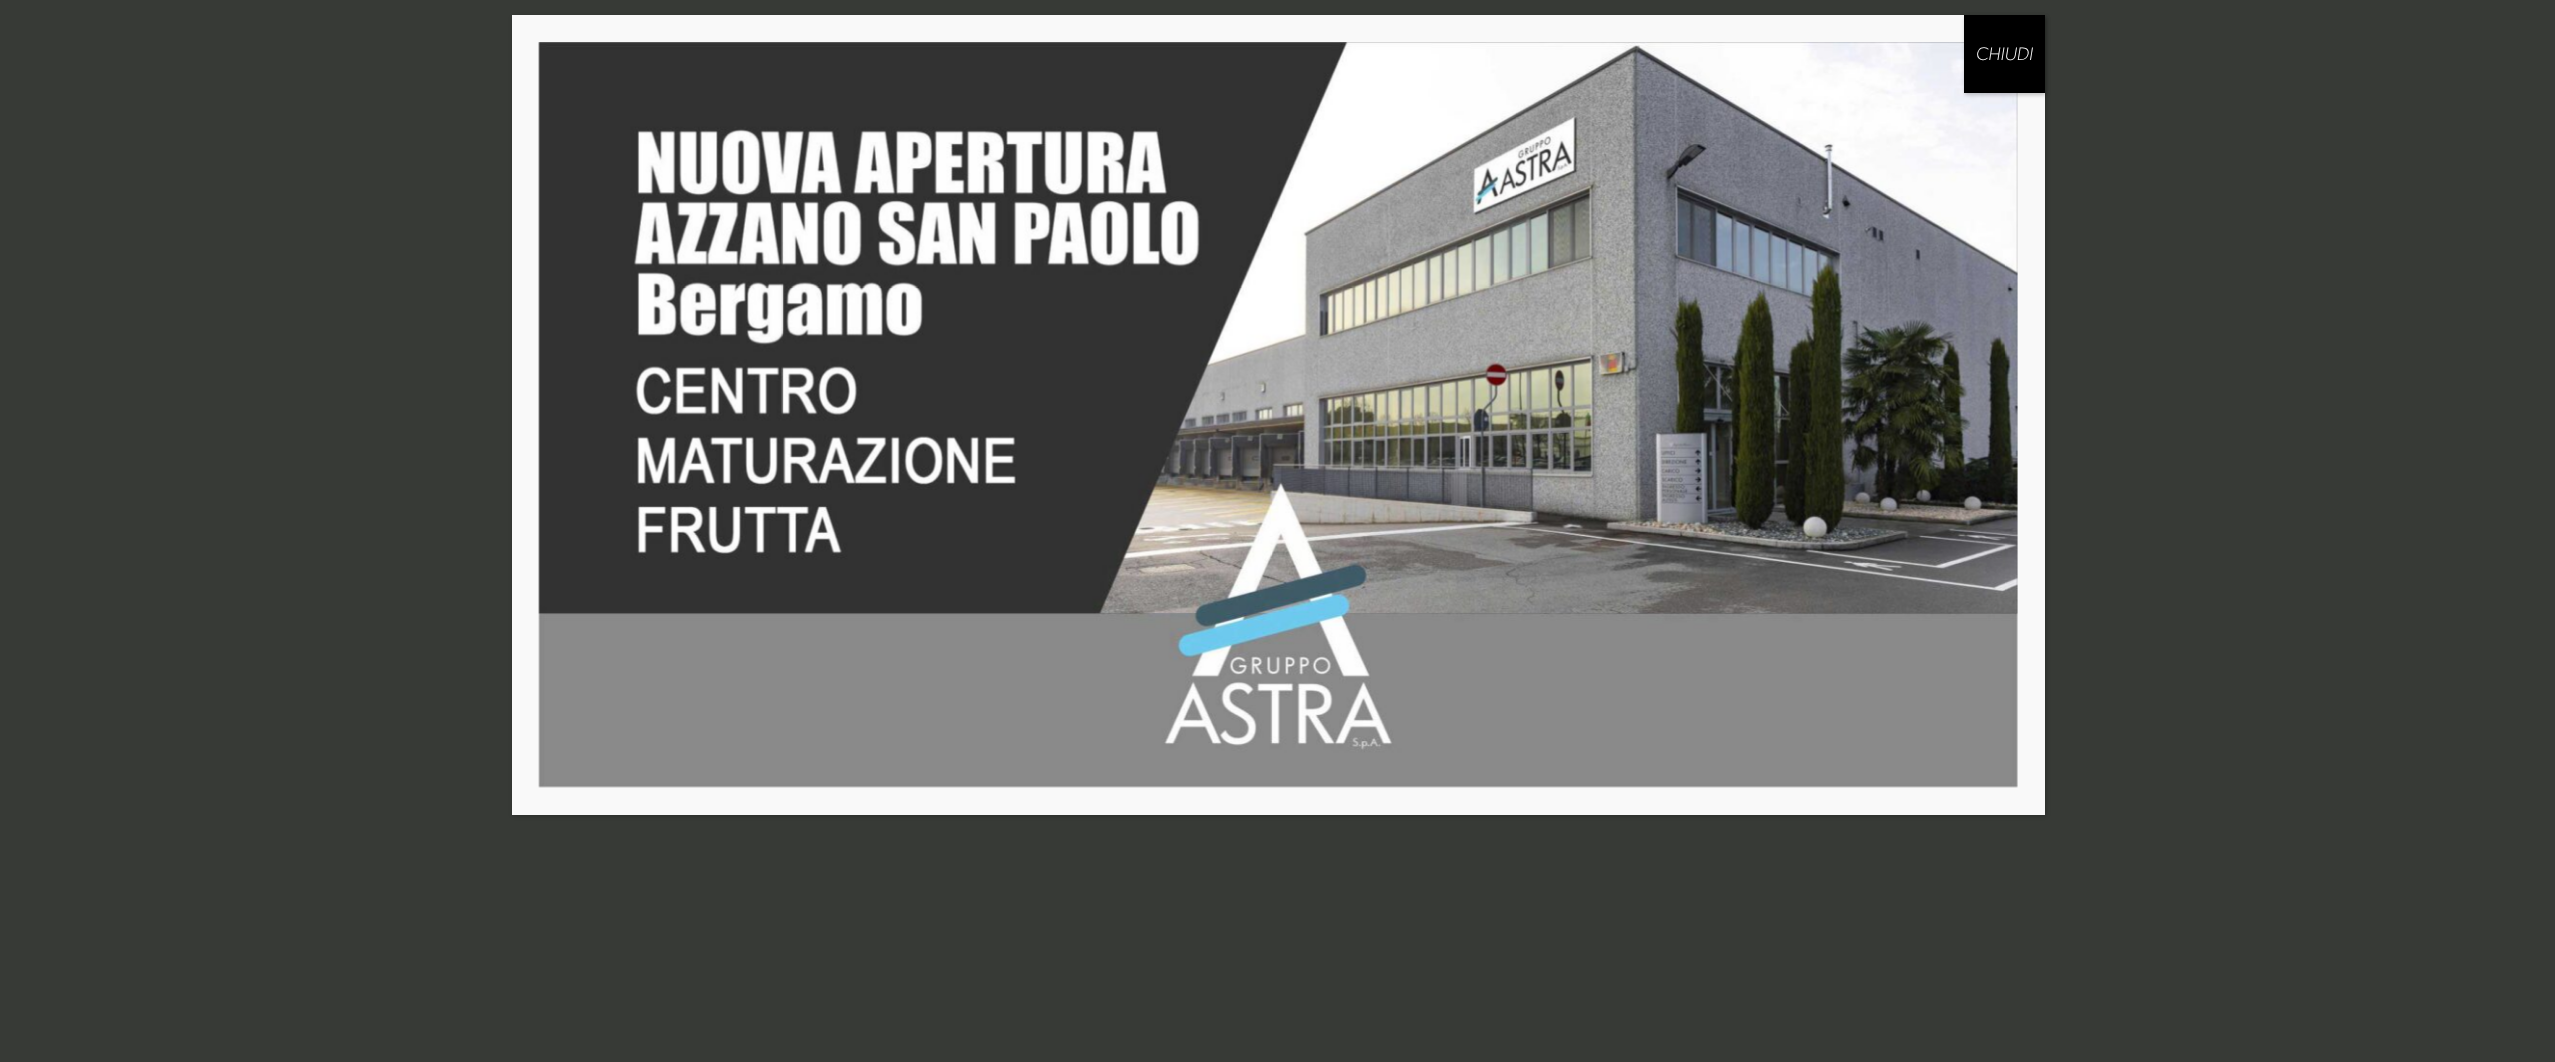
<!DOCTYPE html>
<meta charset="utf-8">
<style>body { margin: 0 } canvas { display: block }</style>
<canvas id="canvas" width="2555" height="1062"></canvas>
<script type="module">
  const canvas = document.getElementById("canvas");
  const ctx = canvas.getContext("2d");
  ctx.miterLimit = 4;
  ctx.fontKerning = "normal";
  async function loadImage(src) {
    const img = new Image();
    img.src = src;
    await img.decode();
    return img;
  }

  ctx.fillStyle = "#373a36";
  ctx.fillRect(0, 0, 2555, 1062);
  ctx.fillStyle = "rgba(2, 2, 2, 0.23)";
  ctx.filter = "blur(2px)";
  ctx.beginPath();
  ctx.rect(513, 17, 1533, 799);
  ctx.fill();
  ctx.filter = "none";
  ctx.fillStyle = "#f9f9f9";
  ctx.fillRect(512, 15, 1533, 800);
  ctx.drawImage(await loadImage("img1.png"), 538, 42, 1480, 746);
  ctx.fillStyle = "rgba(2, 2, 2, 0.23)";
  ctx.filter = "blur(2px)";
  ctx.beginPath();
  ctx.rect(1965, 17, 81, 78);
  ctx.fill();
  ctx.filter = "none";
  ctx.fillStyle = "#000000";
  ctx.fillRect(1964, 15, 81, 78);
  ctx.font = "300 18px 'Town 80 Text'";
  ctx.fillStyle = "#ffffff";
  ctx.fillText("CHIUDI", 1976, 60);
</script>
